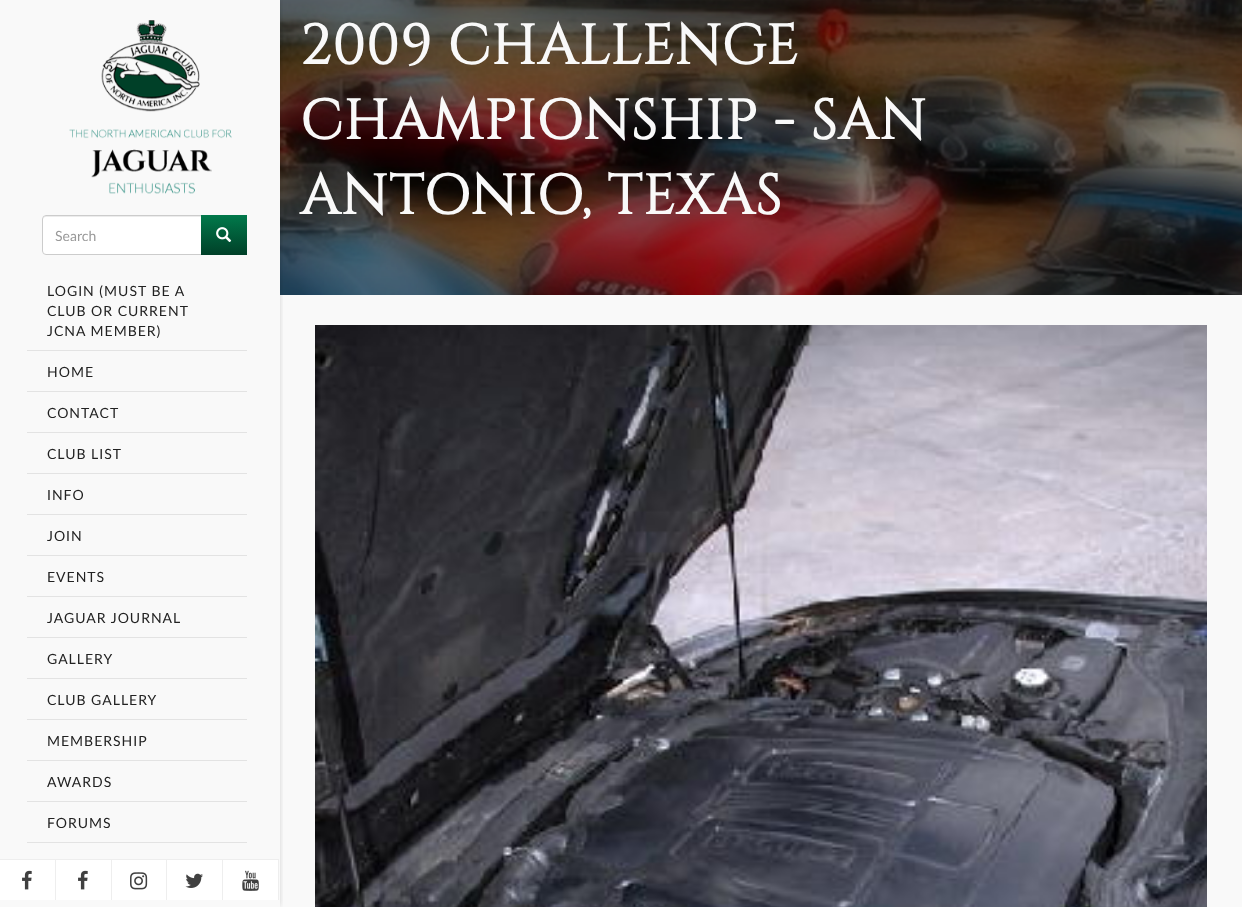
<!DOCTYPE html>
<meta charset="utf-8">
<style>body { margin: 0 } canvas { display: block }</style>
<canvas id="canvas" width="1242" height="907"></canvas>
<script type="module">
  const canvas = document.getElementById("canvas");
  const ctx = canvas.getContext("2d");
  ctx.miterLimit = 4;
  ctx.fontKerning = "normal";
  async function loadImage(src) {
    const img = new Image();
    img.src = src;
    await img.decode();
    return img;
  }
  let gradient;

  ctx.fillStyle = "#f9f9f9";
  ctx.fillRect(0, 0, 1242, 907);
  ctx.drawImage(await loadImage("img1.png"), 280, 0, 962, 295);
  ctx.letterSpacing = "1px";
  ctx.font = "bold 56px Cinzel";
  ctx.fillText("2009 CHALLENGE", 300, 64);
  ctx.fillText("CHAMPIONSHIP - SAN", 300, 139);
  ctx.fillText("ANTONIO, TEXAS", 300, 214);
  ctx.save();
  ctx.beginPath();
  ctx.rect(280, 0, 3, 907);
  ctx.clip();
  ctx.fillStyle = "rgba(0, 0, 0, 0.2)";
  ctx.filter = "blur(3px)";
  ctx.beginPath();
  ctx.rect(1, 1, 278, 905);
  ctx.fill();
  ctx.filter = "none";
  ctx.restore();
  ctx.drawImage(await loadImage("img2.png"), 69, 20, 163, 174);
  ctx.fillStyle = "#ffffff";
  ctx.beginPath();
  ctx.roundRect(42, 215, 175, 40, [4, 0, 0, 4]);
  ctx.fill();
  ctx.fillStyle = "#ececec";
  ctx.beginPath();
  ctx.moveTo(46, 217);
  ctx.lineTo(216, 217);
  ctx.lineTo(216, 216);
  ctx.lineTo(45, 216);
  ctx.bezierCurveTo(43, 217, 43, 218, 43, 220);
  ctx.bezierCurveTo(43, 218, 44, 217, 46, 217);
  ctx.closePath();
  ctx.fill();
  ctx.beginPath();
  ctx.roundRect(42.5, 215.5, 174, 39, [3.5, 0, 0, 3.5]);
  ctx.strokeStyle = "#cccccc";
  ctx.stroke();
  ctx.letterSpacing = "0px";
  ctx.font = "14px Lato";
  ctx.fillStyle = "#999999";
  ctx.fillText("Search", 55, 241);
  gradient = ctx.createLinearGradient(224, 215, 224, 255);
  gradient.addColorStop(0, "#01794b");
  gradient.addColorStop(1, "#004028");
  ctx.fillStyle = gradient;
  ctx.fillRect(201, 215, 46, 40);
  ctx.drawImage(await loadImage("img3.png"), 216, 227, 16, 15);
  ctx.fillStyle = "#e3e3e3";
  ctx.fillRect(27, 350, 220, 1);
  ctx.letterSpacing = "1px";
  ctx.fillStyle = "#222222";
  ctx.fillText("LOGIN (MUST BE A", 47, 296);
  ctx.fillText("CLUB OR CURRENT", 47, 316);
  ctx.fillText("JCNA MEMBER)", 47, 336);
  ctx.fillStyle = "#e3e3e3";
  ctx.fillRect(27, 391, 220, 1);
  ctx.fillStyle = "#222222";
  ctx.fillText("HOME", 47, 377);
  ctx.fillStyle = "#e3e3e3";
  ctx.fillRect(27, 432, 220, 1);
  ctx.fillStyle = "#222222";
  ctx.fillText("CONTACT", 47, 418);
  ctx.fillStyle = "#e3e3e3";
  ctx.fillRect(27, 473, 220, 1);
  ctx.fillStyle = "#222222";
  ctx.fillText("CLUB LIST", 47, 459);
  ctx.fillStyle = "#e3e3e3";
  ctx.fillRect(27, 514, 220, 1);
  ctx.fillStyle = "#222222";
  ctx.fillText("INFO", 47, 500);
  ctx.fillStyle = "#e3e3e3";
  ctx.fillRect(27, 555, 220, 1);
  ctx.fillStyle = "#222222";
  ctx.fillText("JOIN", 47, 541);
  ctx.fillStyle = "#e3e3e3";
  ctx.fillRect(27, 596, 220, 1);
  ctx.fillStyle = "#222222";
  ctx.fillText("EVENTS", 47, 582);
  ctx.fillStyle = "#e3e3e3";
  ctx.fillRect(27, 637, 220, 1);
  ctx.fillStyle = "#222222";
  ctx.fillText("JAGUAR JOURNAL", 47, 623);
  ctx.fillStyle = "#e3e3e3";
  ctx.fillRect(27, 678, 220, 1);
  ctx.fillStyle = "#222222";
  ctx.fillText("GALLERY", 47, 664);
  ctx.fillStyle = "#e3e3e3";
  ctx.fillRect(27, 719, 220, 1);
  ctx.fillStyle = "#222222";
  ctx.fillText("CLUB GALLERY", 47, 705);
  ctx.fillStyle = "#e3e3e3";
  ctx.fillRect(27, 760, 220, 1);
  ctx.fillStyle = "#222222";
  ctx.fillText("MEMBERSHIP", 47, 746);
  ctx.fillStyle = "#e3e3e3";
  ctx.fillRect(27, 801, 220, 1);
  ctx.fillStyle = "#222222";
  ctx.fillText("AWARDS", 47, 787);
  ctx.fillStyle = "#e3e3e3";
  ctx.fillRect(27, 842, 220, 1);
  ctx.fillStyle = "#222222";
  ctx.fillText("FORUMS", 47, 828);
  ctx.fillStyle = "#eeeeee";
  ctx.fillRect(0, 859, 279, 1);
  ctx.fillStyle = "#ffffff";
  ctx.fillRect(0, 860, 55, 40);
  ctx.fillStyle = "#eeeeee";
  ctx.fillRect(55, 860, 1, 40);
  ctx.drawImage(await loadImage("img4.png"), 22, 870, 10, 20);
  ctx.fillStyle = "#ffffff";
  ctx.fillRect(56, 860, 55, 40);
  ctx.fillStyle = "#eeeeee";
  ctx.fillRect(111, 860, 1, 40);
  ctx.drawImage(await loadImage("img4.png"), 78, 870, 10, 20);
  ctx.fillStyle = "#ffffff";
  ctx.fillRect(112, 860, 54, 40);
  ctx.fillStyle = "#eeeeee";
  ctx.fillRect(166, 860, 1, 40);
  ctx.drawImage(await loadImage("img5.png"), 130, 872, 18, 18);
  ctx.fillStyle = "#ffffff";
  ctx.fillRect(167, 860, 55, 40);
  ctx.fillStyle = "#eeeeee";
  ctx.fillRect(222, 860, 1, 40);
  ctx.drawImage(await loadImage("img6.png"), 185, 873, 18, 15);
  ctx.fillStyle = "#ffffff";
  ctx.fillRect(223, 860, 55, 40);
  ctx.fillStyle = "#eeeeee";
  ctx.fillRect(278, 860, 1, 40);
  ctx.drawImage(await loadImage("img7.png"), 242, 870, 17, 21);
  ctx.drawImage(await loadImage("img8.png"), 315, 325, 892, 582);
</script>
